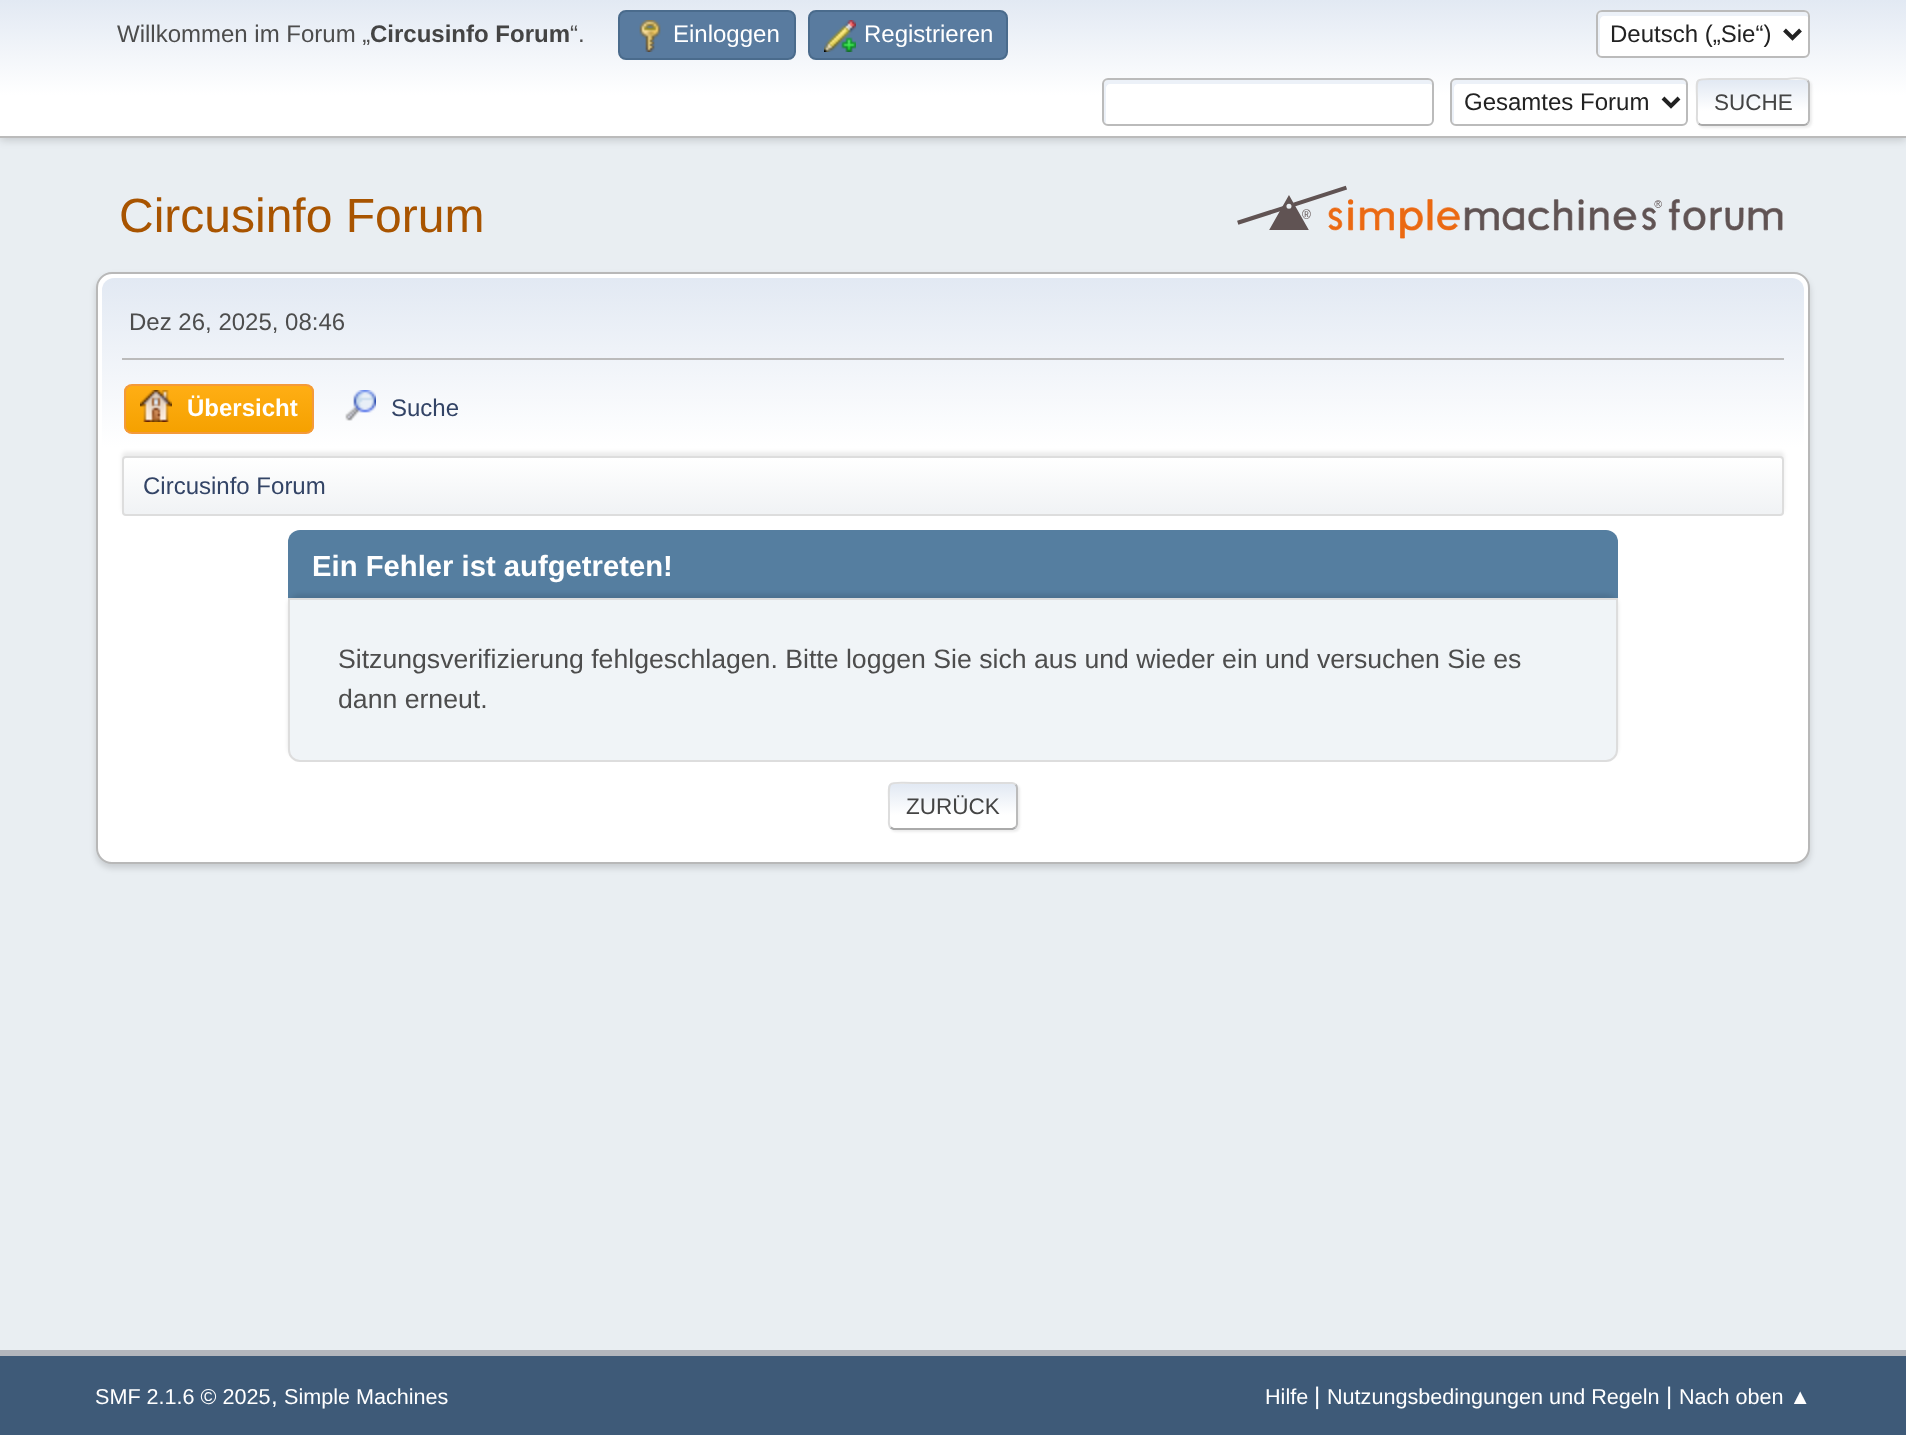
<!DOCTYPE html>
<meta charset="utf-8">
<style>body { margin: 0 } canvas { display: block }</style>
<canvas id="canvas" width="1906" height="1435"></canvas>
<script type="module">
  const canvas = document.getElementById("canvas");
  const ctx = canvas.getContext("2d");
  ctx.miterLimit = 4;
  ctx.fontKerning = "normal";
  async function loadImage(src) {
    const img = new Image();
    img.src = src;
    await img.decode();
    return img;
  }
  let gradient;

  ctx.fillStyle = "#e9eef2";
  ctx.fillRect(0, 0, 1906, 1435);
  ctx.fillStyle = "rgba(0, 0, 0, 0.16)";
  ctx.filter = "blur(4px)";
  ctx.beginPath();
  ctx.rect(0, 2, 1906, 138);
  ctx.fill();
  ctx.filter = "none";
  gradient = ctx.createLinearGradient(953, 0, 953, 136);
  gradient.addColorStop(0, "#e2e9f3");
  gradient.addColorStop(0.7, "#ffffff");
  ctx.fillStyle = gradient;
  ctx.fillRect(0, 0, 1906, 136);
  ctx.fillStyle = "#bbbbbb";
  ctx.fillRect(0, 136, 1906, 2);
  ctx.font = "24px Liberation Sans";
  ctx.fillStyle = "#4d4d4d";
  ctx.fillText("Willkommen im Forum „", 117, 42);
  ctx.font = "bold 24px Liberation Sans";
  ctx.fillStyle = "#444444";
  ctx.fillText("Circusinfo Forum", 370, 42);
  ctx.font = "24px Liberation Sans";
  ctx.fillStyle = "#4d4d4d";
  ctx.fillText("“.", 570, 42);
  ctx.fillStyle = "#597b9f";
  ctx.beginPath();
  ctx.roundRect(619, 11, 176, 48, 7);
  ctx.fill();
  ctx.strokeStyle = "#4a6b8c";
  ctx.lineWidth = 2;
  ctx.stroke();
  ctx.drawImage(await loadImage("img1.png"), 639, 20, 22, 32);
  ctx.fillStyle = "#ffffff";
  ctx.fillText("Einloggen", 673, 42);
  ctx.fillStyle = "#597b9f";
  ctx.beginPath();
  ctx.roundRect(809, 11, 198, 48, 7);
  ctx.fill();
  ctx.stroke();
  ctx.drawImage(await loadImage("img2.png"), 824, 20, 32, 32);
  ctx.fillStyle = "#ffffff";
  ctx.fillText("Registrieren", 864, 42);
  ctx.beginPath();
  ctx.roundRect(1596, 10, 214, 48, 6);
  ctx.fill();
  ctx.fillStyle = "#ecf1f8";
  ctx.beginPath();
  ctx.moveTo(1604, 16);
  ctx.lineTo(1806, 16);
  ctx.lineTo(1808, 17);
  ctx.lineTo(1808, 16);
  ctx.bezierCurveTo(1808, 14, 1806, 12, 1804, 12);
  ctx.lineTo(1602, 12);
  ctx.bezierCurveTo(1600, 12, 1598, 14, 1598, 16);
  ctx.lineTo(1598, 52);
  ctx.bezierCurveTo(1598, 53, 1599, 55, 1600, 55);
  ctx.lineTo(1600, 20);
  ctx.bezierCurveTo(1600, 18, 1602, 16, 1604, 16);
  ctx.closePath();
  ctx.fill();
  ctx.beginPath();
  ctx.roundRect(1597, 11, 212, 46, 5);
  ctx.strokeStyle = "#bbbbbb";
  ctx.stroke();
  ctx.beginPath();
  ctx.moveTo(1784.5, 30);
  ctx.lineTo(1792.5, 38);
  ctx.lineTo(1800.5, 30);
  ctx.strokeStyle = "#222222";
  ctx.lineWidth = 4;
  ctx.stroke();
  ctx.fillStyle = "#222222";
  ctx.fillText("Deutsch („Sie“)", 1610, 42);
  ctx.fillStyle = "#ffffff";
  ctx.beginPath();
  ctx.roundRect(1102, 78, 332, 48, 6);
  ctx.fill();
  ctx.fillStyle = "#ecf1f8";
  ctx.beginPath();
  ctx.moveTo(1110, 84);
  ctx.lineTo(1430, 84);
  ctx.lineTo(1432, 85);
  ctx.lineTo(1432, 84);
  ctx.bezierCurveTo(1432, 82, 1430, 80, 1428, 80);
  ctx.lineTo(1108, 80);
  ctx.bezierCurveTo(1106, 80, 1104, 82, 1104, 84);
  ctx.lineTo(1104, 120);
  ctx.bezierCurveTo(1104, 121, 1105, 123, 1106, 123);
  ctx.lineTo(1106, 88);
  ctx.bezierCurveTo(1106, 86, 1108, 84, 1110, 84);
  ctx.closePath();
  ctx.fill();
  ctx.beginPath();
  ctx.roundRect(1103, 79, 330, 46, 5);
  ctx.strokeStyle = "#bbbbbb";
  ctx.lineWidth = 2;
  ctx.stroke();
  ctx.fillStyle = "#ffffff";
  ctx.beginPath();
  ctx.roundRect(1450, 78, 238, 48, 6);
  ctx.fill();
  ctx.fillStyle = "#ecf1f8";
  ctx.beginPath();
  ctx.moveTo(1458, 84);
  ctx.lineTo(1684, 84);
  ctx.lineTo(1686, 85);
  ctx.lineTo(1686, 84);
  ctx.bezierCurveTo(1686, 82, 1684, 80, 1682, 80);
  ctx.lineTo(1456, 80);
  ctx.bezierCurveTo(1454, 80, 1452, 82, 1452, 84);
  ctx.lineTo(1452, 120);
  ctx.bezierCurveTo(1452, 121, 1453, 123, 1454, 123);
  ctx.lineTo(1454, 88);
  ctx.bezierCurveTo(1454, 86, 1456, 84, 1458, 84);
  ctx.closePath();
  ctx.fill();
  ctx.beginPath();
  ctx.roundRect(1451, 79, 236, 46, 5);
  ctx.stroke();
  ctx.beginPath();
  ctx.moveTo(1663, 98);
  ctx.lineTo(1671, 106);
  ctx.lineTo(1679, 98);
  ctx.strokeStyle = "#222222";
  ctx.lineWidth = 4;
  ctx.stroke();
  ctx.fillStyle = "#222222";
  ctx.fillText("Gesamtes Forum", 1464, 110);
  ctx.fillStyle = "rgba(221, 221, 221, 0.57)";
  ctx.filter = "blur(1px)";
  ctx.beginPath();
  ctx.roundRect(1698, 80, 114, 48, 6);
  ctx.fill();
  ctx.filter = "none";
  ctx.fillStyle = "#ffffff";
  ctx.beginPath();
  ctx.roundRect(1696, 78, 114, 48, 6);
  ctx.fill();
  ctx.save();
  ctx.beginPath();
  ctx.roundRect(1696, 78, 114, 48, 6);
  ctx.clip();
  gradient = ctx.createLinearGradient(1753, 80, 1753, 124);
  gradient.addColorStop(0, "#e2e9f3");
  gradient.addColorStop(0.7, "#ffffff");
  ctx.fillStyle = gradient;
  ctx.fillRect(1696, 80, 114, 44);
  ctx.restore();
  ctx.beginPath();
  ctx.moveTo(1807.5, 80.5);
  ctx.bezierCurveTo(1808.5, 81.5, 1809, 82.5, 1809, 84);
  ctx.lineTo(1809, 120);
  ctx.bezierCurveTo(1809, 121.5, 1808.5, 122.5, 1807.5, 123.5);
  ctx.strokeStyle = "#bbbbbb";
  ctx.lineWidth = 2;
  ctx.stroke();
  ctx.beginPath();
  ctx.moveTo(1807.5, 123.5);
  ctx.bezierCurveTo(1806.5, 124.5, 1805.5, 125, 1804, 125);
  ctx.lineTo(1702, 125);
  ctx.bezierCurveTo(1700.5, 125, 1699.5, 124.5, 1698.5, 123.5);
  ctx.strokeStyle = "#aaaaaa";
  ctx.stroke();
  ctx.beginPath();
  ctx.moveTo(1698.5, 123.5);
  ctx.bezierCurveTo(1696, 121, 1697, 116.5, 1697, 114);
  ctx.lineTo(1697, 102);
  ctx.bezierCurveTo(1697, 76, 1692.5, 79, 1719, 79);
  ctx.lineTo(1787, 79);
  ctx.bezierCurveTo(1787, 79, 1803.5, 76.5, 1807.5, 80.5);
  ctx.strokeStyle = "#dddddd";
  ctx.stroke();
  ctx.font = "22.5px Liberation Sans";
  ctx.fillStyle = "#444444";
  ctx.fillText("SUCHE", 1714, 110);
  ctx.font = "48px Liberation Sans";
  ctx.fillStyle = "#a85400";
  ctx.fillText("Circusinfo Forum", 119, 232);
  ctx.drawImage(await loadImage("img3.png"), 1237, 185, 546, 54);
  ctx.fillStyle = "rgba(0, 0, 0, 0.14)";
  ctx.filter = "blur(3px)";
  ctx.beginPath();
  ctx.roundRect(96, 276, 1714, 592, 16);
  ctx.fill();
  ctx.filter = "none";
  ctx.fillStyle = "#ffffff";
  ctx.beginPath();
  ctx.roundRect(97, 273, 1712, 590, 15);
  ctx.fill();
  ctx.strokeStyle = "#b8b8b8";
  ctx.stroke();
  gradient = ctx.createLinearGradient(953, 278, 953, 520);
  gradient.addColorStop(0, "#e2e9f3");
  gradient.addColorStop(0.7, "#ffffff");
  ctx.fillStyle = gradient;
  ctx.beginPath();
  ctx.roundRect(102, 278, 1702, 242, [12, 12, 0, 0]);
  ctx.fill();
  ctx.fillStyle = "#bbbbbb";
  ctx.fillRect(122, 358, 1662, 2);
  ctx.font = "24px Liberation Sans";
  ctx.fillStyle = "#4d4d4d";
  ctx.fillText("Dez 26, 2025, 08:46", 129, 330);
  ctx.save();
  ctx.beginPath();
  ctx.roundRect(124, 384, 190, 50, 8);
  ctx.clip();
  gradient = ctx.createLinearGradient(219, 386, 219, 432);
  gradient.addColorStop(0, "#ffae14");
  gradient.addColorStop(1, "#f5a100");
  ctx.fillStyle = gradient;
  ctx.fillRect(124, 386, 190, 46);
  ctx.restore();
  ctx.beginPath();
  ctx.roundRect(125, 385, 188, 48, 7);
  ctx.strokeStyle = "#f49a3a";
  ctx.stroke();
  ctx.drawImage(await loadImage("img4.png"), 140, 390, 32, 32);
  ctx.font = "bold 24px Liberation Sans";
  ctx.fillStyle = "#ffffff";
  ctx.fillText("Übersicht", 187, 416);
  ctx.drawImage(await loadImage("img5.png"), 345, 390, 31, 31);
  ctx.font = "24px Liberation Sans";
  ctx.fillStyle = "#334466";
  ctx.fillText("Suche", 391, 416);
  ctx.fillStyle = "rgba(0, 0, 0, 0.08)";
  ctx.filter = "blur(2px)";
  ctx.beginPath();
  ctx.roundRect(122, 452, 1662, 60, 4);
  ctx.fill();
  ctx.filter = "none";
  ctx.save();
  ctx.beginPath();
  ctx.roundRect(122, 456, 1662, 60, 4);
  ctx.clip();
  gradient = ctx.createLinearGradient(953, 458, 953, 514);
  gradient.addColorStop(0, "#ffffff");
  gradient.addColorStop(0.95, "#f1f3f5");
  ctx.fillStyle = gradient;
  ctx.fillRect(122, 458, 1662, 56);
  ctx.restore();
  ctx.beginPath();
  ctx.roundRect(123, 457, 1660, 58, 3);
  ctx.strokeStyle = "#dddddd";
  ctx.stroke();
  ctx.fillStyle = "#334466";
  ctx.fillText("Circusinfo Forum", 143, 494);
  ctx.fillStyle = "#557ea0";
  ctx.beginPath();
  ctx.roundRect(288, 530, 1330, 70, [12, 12, 0, 0]);
  ctx.fill();
  ctx.font = "bold 29.25px Liberation Sans";
  ctx.fillStyle = "#ffffff";
  ctx.fillText("Ein Fehler ist aufgetreten!", 312, 576);
  ctx.fillStyle = "rgba(0, 0, 0, 0.1)";
  ctx.filter = "blur(2px)";
  ctx.beginPath();
  ctx.roundRect(288, 594, 1330, 164, 12);
  ctx.fill();
  ctx.filter = "none";
  ctx.fillStyle = "#f0f4f7";
  ctx.beginPath();
  ctx.roundRect(289, 599, 1328, 162, [0, 0, 11, 11]);
  ctx.fill();
  ctx.stroke();
  ctx.font = "26.65px Liberation Sans";
  ctx.fillStyle = "#4d4d4d";
  ctx.fillText("Sitzungsverifizierung fehlgeschlagen. Bitte loggen Sie sich aus und wieder ein und versuchen Sie es", 338, 668);
  ctx.fillText("dann erneut.", 338, 708);
  ctx.fillStyle = "rgba(221, 221, 221, 0.57)";
  ctx.filter = "blur(1px)";
  ctx.beginPath();
  ctx.roundRect(890, 784, 130, 48, 6);
  ctx.fill();
  ctx.filter = "none";
  ctx.save();
  ctx.beginPath();
  ctx.roundRect(888, 782, 130, 48, 6);
  ctx.clip();
  gradient = ctx.createLinearGradient(953, 784, 953, 828);
  gradient.addColorStop(0, "#e2e9f3");
  gradient.addColorStop(0.7, "#ffffff");
  ctx.fillStyle = gradient;
  ctx.fillRect(888, 784, 130, 44);
  gradient = ctx.createLinearGradient(953, 828, 953, 872);
  gradient.addColorStop(0, "#e2e9f3");
  gradient.addColorStop(0.7, "#ffffff");
  ctx.fillStyle = gradient;
  ctx.fillRect(888, 828, 130, 2);
  ctx.restore();
  ctx.beginPath();
  ctx.moveTo(1015.5, 784.5);
  ctx.bezierCurveTo(1016.5, 785.5, 1017, 786.5, 1017, 788);
  ctx.lineTo(1017, 824);
  ctx.bezierCurveTo(1017, 825.5, 1016.5, 826.5, 1015.5, 827.5);
  ctx.strokeStyle = "#bbbbbb";
  ctx.stroke();
  ctx.beginPath();
  ctx.moveTo(1015.5, 827.5);
  ctx.lineTo(1012.5, 829);
  ctx.lineTo(893.5, 829);
  ctx.lineTo(890.5, 827.5);
  ctx.strokeStyle = "#aaaaaa";
  ctx.stroke();
  ctx.beginPath();
  ctx.moveTo(890.5, 827.5);
  ctx.bezierCurveTo(888, 825, 889, 820.5, 889, 818);
  ctx.lineTo(889, 806);
  ctx.bezierCurveTo(889, 779, 885, 783, 913.5, 783);
  ctx.lineTo(1012, 783);
  ctx.bezierCurveTo(1013.5, 783, 1014.5, 783.5, 1015.5, 784.5);
  ctx.strokeStyle = "#dddddd";
  ctx.stroke();
  ctx.font = "22.5px Liberation Sans";
  ctx.fillStyle = "#444444";
  ctx.fillText("ZURÜCK", 906, 814);
  ctx.fillStyle = "#3e5a78";
  ctx.fillRect(0, 1356, 1906, 79);
  ctx.fillStyle = "#b2b6bd";
  ctx.fillRect(0, 1350, 1906, 6);
  ctx.font = "21.6px Liberation Sans";
  ctx.fillStyle = "#ffffff";
  ctx.fillText("SMF 2.1.6 © 2025", 95, 1404);
  ctx.font = "24px Liberation Sans";
  ctx.fillText(",", 271, 1404);
  ctx.font = "21.6px Liberation Sans";
  ctx.fillText("Simple Machines", 284, 1404);
  ctx.fillText("Hilfe", 1265, 1404);
  ctx.font = "24px Liberation Sans";
  ctx.fillText("|", 1314, 1404);
  ctx.font = "21.6px Liberation Sans";
  ctx.fillText("Nutzungsbedingungen und Regeln", 1327, 1404);
  ctx.font = "24px Liberation Sans";
  ctx.fillText("|", 1666, 1404);
  ctx.font = "21.6px Liberation Sans";
  ctx.fillText("Nach oben ▲", 1679, 1404);
</script>
